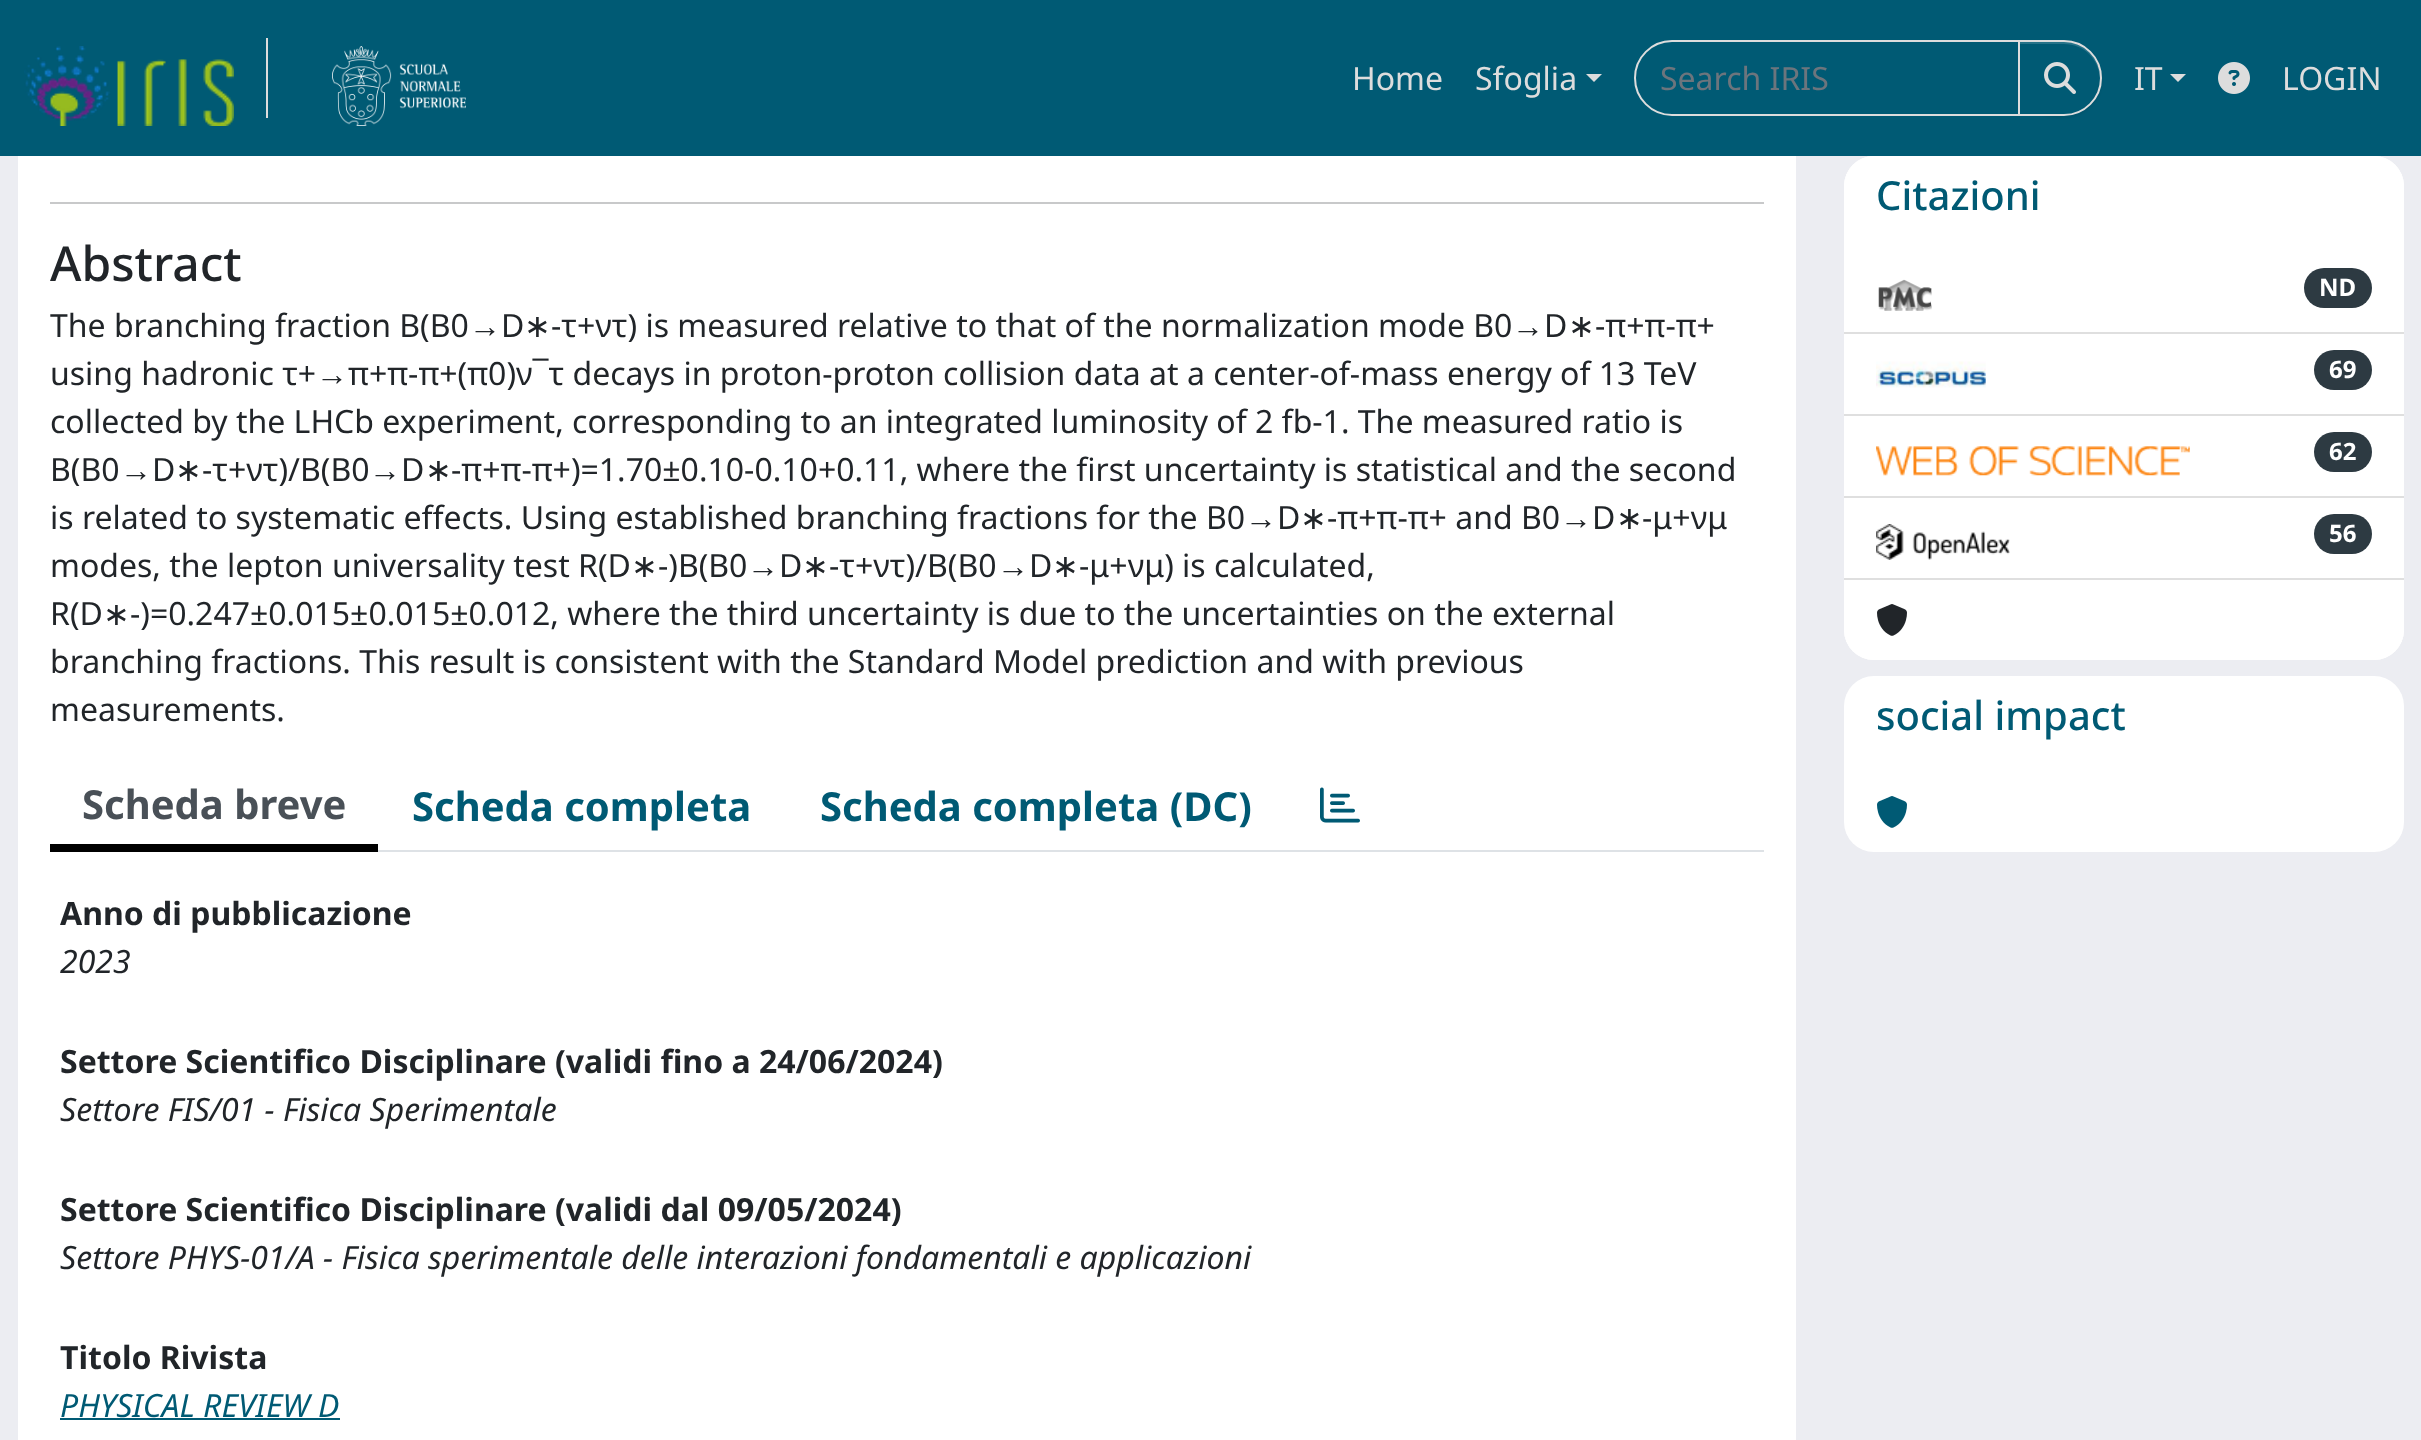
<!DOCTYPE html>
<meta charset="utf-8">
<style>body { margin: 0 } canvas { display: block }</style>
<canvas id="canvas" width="2421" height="1440"></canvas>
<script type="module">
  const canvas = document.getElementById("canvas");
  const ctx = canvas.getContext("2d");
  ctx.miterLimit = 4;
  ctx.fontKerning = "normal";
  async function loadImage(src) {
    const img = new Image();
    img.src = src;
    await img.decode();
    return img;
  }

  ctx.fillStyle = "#ecedf2";
  ctx.fillRect(0, 0, 2421, 1440);
  ctx.fillStyle = "#005a74";
  ctx.fillRect(0, 0, 2421, 156);
  ctx.fillStyle = "#dddddd";
  ctx.fillRect(266, 38, 2, 80);
  ctx.drawImage(await loadImage("img1.png"), 24, 46, 210, 80);
  ctx.drawImage(await loadImage("img2.png"), 332, 46, 134, 80);
  ctx.font = "32px Noto Sans";
  ctx.fillText("Home", 1352, 90);
  ctx.fillText("Sfoglia", 1475, 90);
  ctx.beginPath();
  ctx.moveTo(1586, 74);
  ctx.lineTo(1602, 74);
  ctx.lineTo(1594, 82);
  ctx.closePath();
  ctx.fill();
  ctx.beginPath();
  ctx.roundRect(1635, 41, 384, 74, [37, 0, 0, 37]);
  ctx.strokeStyle = "#dddddd";
  ctx.lineWidth = 2;
  ctx.stroke();
  ctx.fillStyle = "#6c757d";
  ctx.fillText("Search IRIS", 1660, 90);
  ctx.fillStyle = "rgba(0, 0, 0, 0.07)";
  ctx.filter = "blur(1px)";
  ctx.beginPath();
  ctx.roundRect(2018, 42, 84, 76, 38);
  ctx.fill();
  ctx.filter = "none";
  ctx.fillStyle = "#005a74";
  ctx.beginPath();
  ctx.roundRect(2018, 40, 84, 76, [0, 38, 38, 0]);
  ctx.fill();
  ctx.fillStyle = "#267389";
  ctx.beginPath();
  ctx.moveTo(2020, 44);
  ctx.lineTo(2064, 44);
  ctx.bezierCurveTo(2084, 44, 2099, 59, 2100, 79);
  ctx.lineTo(2100, 78);
  ctx.bezierCurveTo(2100, 58, 2084, 42, 2064, 42);
  ctx.lineTo(2020, 42);
  ctx.closePath();
  ctx.fill();
  ctx.beginPath();
  ctx.roundRect(2019, 41, 82, 74, [0, 37, 37, 0]);
  ctx.stroke();
  ctx.drawImage(await loadImage("img3.png"), 2044, 62, 32, 32);
  ctx.fillStyle = "#dddddd";
  ctx.fillText("IT", 2134, 90);
  ctx.beginPath();
  ctx.moveTo(2170, 74);
  ctx.lineTo(2186, 74);
  ctx.lineTo(2178, 82);
  ctx.closePath();
  ctx.fill();
  ctx.drawImage(await loadImage("img4.png"), 2218, 62, 32, 32);
  ctx.fillText("LOGIN", 2282, 90);
  ctx.fillStyle = "#ffffff";
  ctx.fillRect(18, 156, 1778, 1284);
  ctx.fillStyle = "#c8c9ca";
  ctx.fillRect(50, 202, 1714, 2);
  ctx.font = "500 48px Noto Sans";
  ctx.fillStyle = "#212529";
  ctx.fillText("Abstract", 50, 281);
  ctx.font = "32px Noto Sans";
  ctx.fillText("The branching fraction B(B0", 50, 337);
  ctx.font = "32px Liberation Sans";
  ctx.fillText("→", 469, 337);
  ctx.font = "32px Noto Sans";
  ctx.fillText("D", 501, 337);
  ctx.font = "32px DejaVu Sans";
  ctx.fillText("∗", 524, 337);
  ctx.font = "32px Noto Sans";
  ctx.fillText("-τ+ντ) is measured relative to that of the normalization mode B0", 551, 337);
  ctx.font = "32px Liberation Sans";
  ctx.fillText("→", 1512, 337);
  ctx.font = "32px Noto Sans";
  ctx.fillText("D", 1544, 337);
  ctx.font = "32px DejaVu Sans";
  ctx.fillText("∗", 1568, 337);
  ctx.font = "32px Noto Sans";
  ctx.fillText("-π+π-π+", 1595, 337);
  ctx.fillText("using hadronic τ+", 50, 385);
  ctx.font = "32px Liberation Sans";
  ctx.fillText("→", 316, 385);
  ctx.font = "32px Noto Sans";
  ctx.fillText("π+π-π+(π0)ν¯τ decays in proton-proton collision data at a center-of-mass energy of 13 TeV", 348, 385);
  ctx.fillText("collected by the LHCb experiment, corresponding to an integrated luminosity of 2 fb-1. The measured ratio is", 50, 433);
  ctx.fillText("B(B0", 50, 481);
  ctx.font = "32px Liberation Sans";
  ctx.fillText("→", 120, 481);
  ctx.font = "32px Noto Sans";
  ctx.fillText("D", 152, 481);
  ctx.font = "32px DejaVu Sans";
  ctx.fillText("∗", 175, 481);
  ctx.font = "32px Noto Sans";
  ctx.fillText("-τ+ντ)/B(B0", 202, 481);
  ctx.font = "32px Liberation Sans";
  ctx.fillText("→", 369, 481);
  ctx.font = "32px Noto Sans";
  ctx.fillText("D", 401, 481);
  ctx.font = "32px DejaVu Sans";
  ctx.fillText("∗", 425, 481);
  ctx.font = "32px Noto Sans";
  ctx.fillText("-π+π-π+)=1.70±0.10-0.10+0.11, where the first uncertainty is statistical and the second", 451, 481);
  ctx.fillText("is related to systematic effects. Using established branching fractions for the B0", 50, 529);
  ctx.font = "32px Liberation Sans";
  ctx.fillText("→", 1245, 529);
  ctx.font = "32px Noto Sans";
  ctx.fillText("D", 1277, 529);
  ctx.font = "32px DejaVu Sans";
  ctx.fillText("∗", 1300, 529);
  ctx.font = "32px Noto Sans";
  ctx.fillText("-π+π-π+ and B0", 1327, 529);
  ctx.font = "32px Liberation Sans";
  ctx.fillText("→", 1560, 529);
  ctx.font = "32px Noto Sans";
  ctx.fillText("D", 1592, 529);
  ctx.font = "32px DejaVu Sans";
  ctx.fillText("∗", 1616, 529);
  ctx.font = "32px Noto Sans";
  ctx.fillText("-μ+νμ", 1642, 529);
  ctx.fillText("modes, the lepton universality test R(D", 50, 577);
  ctx.font = "32px DejaVu Sans";
  ctx.fillText("∗", 631, 577);
  ctx.font = "32px Noto Sans";
  ctx.fillText("-)B(B0", 658, 577);
  ctx.font = "32px Liberation Sans";
  ctx.fillText("→", 747, 577);
  ctx.font = "32px Noto Sans";
  ctx.fillText("D", 779, 577);
  ctx.font = "32px DejaVu Sans";
  ctx.fillText("∗", 802, 577);
  ctx.font = "32px Noto Sans";
  ctx.fillText("-τ+ντ)/B(B0", 829, 577);
  ctx.font = "32px Liberation Sans";
  ctx.fillText("→", 997, 577);
  ctx.font = "32px Noto Sans";
  ctx.fillText("D", 1029, 577);
  ctx.font = "32px DejaVu Sans";
  ctx.fillText("∗", 1052, 577);
  ctx.font = "32px Noto Sans";
  ctx.fillText("-μ+νμ) is calculated,", 1079, 577);
  ctx.fillText("R(D", 50, 625);
  ctx.font = "32px DejaVu Sans";
  ctx.fillText("∗", 103, 625);
  ctx.font = "32px Noto Sans";
  ctx.fillText("-)=0.247±0.015±0.015±0.012, where the third uncertainty is due to the uncertainties on the external", 130, 625);
  ctx.fillText("branching fractions. This result is consistent with the Standard Model prediction and with previous", 50, 673);
  ctx.fillText("measurements.", 50, 721);
  ctx.fillStyle = "#dee2e6";
  ctx.fillRect(378, 850, 1386, 2);
  ctx.fillStyle = "#000000";
  ctx.fillRect(50, 844, 328, 8);
  ctx.font = "bold 40px Noto Sans";
  ctx.fillStyle = "#495057";
  ctx.fillText("Scheda breve", 82, 819);
  ctx.fillStyle = "#005a74";
  ctx.fillText("Scheda completa", 412, 821);
  ctx.fillText("Scheda completa (DC)", 820, 821);
  ctx.drawImage(await loadImage("img5.png"), 1320, 787, 40, 36);
  ctx.font = "bold 32px Noto Sans";
  ctx.fillStyle = "#212529";
  ctx.fillText("Anno di pubblicazione", 60, 925);
  ctx.font = "italic 32px Noto Sans";
  ctx.fillText("2023", 60, 973);
  ctx.font = "bold 32px Noto Sans";
  ctx.fillText("Settore Scientifico Disciplinare (validi fino a 24/06/2024)", 60, 1073);
  ctx.font = "italic 32px Noto Sans";
  ctx.fillText("Settore FIS/01 - Fisica Sperimentale", 60, 1121);
  ctx.font = "bold 32px Noto Sans";
  ctx.fillText("Settore Scientifico Disciplinare (validi dal 09/05/2024)", 60, 1221);
  ctx.font = "italic 32px Noto Sans";
  ctx.fillText("Settore PHYS-01/A - Fisica sperimentale delle interazioni fondamentali e applicazioni", 60, 1269);
  ctx.font = "bold 32px Noto Sans";
  ctx.fillText("Titolo Rivista", 60, 1369);
  ctx.font = "italic 32px Noto Sans";
  ctx.fillStyle = "#005a74";
  ctx.fillText("PHYSICAL REVIEW D", 60, 1417);
  ctx.fillRect(60, 1418, 280, 2);
  ctx.fillStyle = "#ffffff";
  ctx.beginPath();
  ctx.roundRect(1844, 156, 560, 504, 30);
  ctx.fill();
  ctx.beginPath();
  ctx.roundRect(1844, 156, 560, 96, [30, 30, 0, 0]);
  ctx.fill();
  ctx.font = "500 40px Noto Sans";
  ctx.fillStyle = "#005a74";
  ctx.fillText("Citazioni", 1876, 210);
  ctx.fillStyle = "#dfdfdf";
  ctx.fillRect(1844, 332, 560, 2);
  ctx.drawImage(await loadImage("img6.png"), 1878, 279, 54, 32);
  ctx.fillStyle = "#2d3a42";
  ctx.beginPath();
  ctx.roundRect(2304, 268, 68, 40, 20);
  ctx.fill();
  ctx.font = "bold 24px Noto Sans";
  ctx.fillStyle = "#ffffff";
  ctx.fillText("ND", 2319, 296);
  ctx.fillStyle = "#dfdfdf";
  ctx.fillRect(1844, 414, 560, 2);
  ctx.drawImage(await loadImage("img7.png"), 1876, 361, 110, 27);
  ctx.fillStyle = "#2d3a42";
  ctx.beginPath();
  ctx.roundRect(2314, 350, 58, 40, 20);
  ctx.fill();
  ctx.fillStyle = "#ffffff";
  ctx.fillText("69", 2329, 378);
  ctx.fillStyle = "#dfdfdf";
  ctx.fillRect(1844, 496, 560, 2);
  ctx.drawImage(await loadImage("img8.png"), 1876, 446, 314, 30);
  ctx.fillStyle = "#2d3a42";
  ctx.beginPath();
  ctx.roundRect(2314, 432, 58, 40, 20);
  ctx.fill();
  ctx.fillStyle = "#ffffff";
  ctx.fillText("62", 2329, 460);
  ctx.fillStyle = "#dfdfdf";
  ctx.fillRect(1844, 578, 560, 2);
  ctx.drawImage(await loadImage("img9.png"), 1876, 524, 134, 36);
  ctx.fillStyle = "#2d3a42";
  ctx.beginPath();
  ctx.roundRect(2314, 514, 58, 40, 20);
  ctx.fill();
  ctx.fillStyle = "#ffffff";
  ctx.fillText("56", 2329, 542);
  ctx.beginPath();
  ctx.roundRect(1844, 580, 560, 80, [0, 0, 30, 30]);
  ctx.fill();
  ctx.drawImage(await loadImage("img10.png"), 1877, 604, 30, 32);
  ctx.beginPath();
  ctx.roundRect(1844, 676, 560, 96, [30, 30, 0, 0]);
  ctx.fill();
  ctx.font = "500 40px Noto Sans";
  ctx.fillStyle = "#005a74";
  ctx.fillText("social impact", 1876, 730);
  ctx.fillStyle = "#ffffff";
  ctx.beginPath();
  ctx.roundRect(1844, 772, 560, 80, [0, 0, 30, 30]);
  ctx.fill();
  ctx.drawImage(await loadImage("img11.png"), 1877, 796, 30, 32);
</script>
